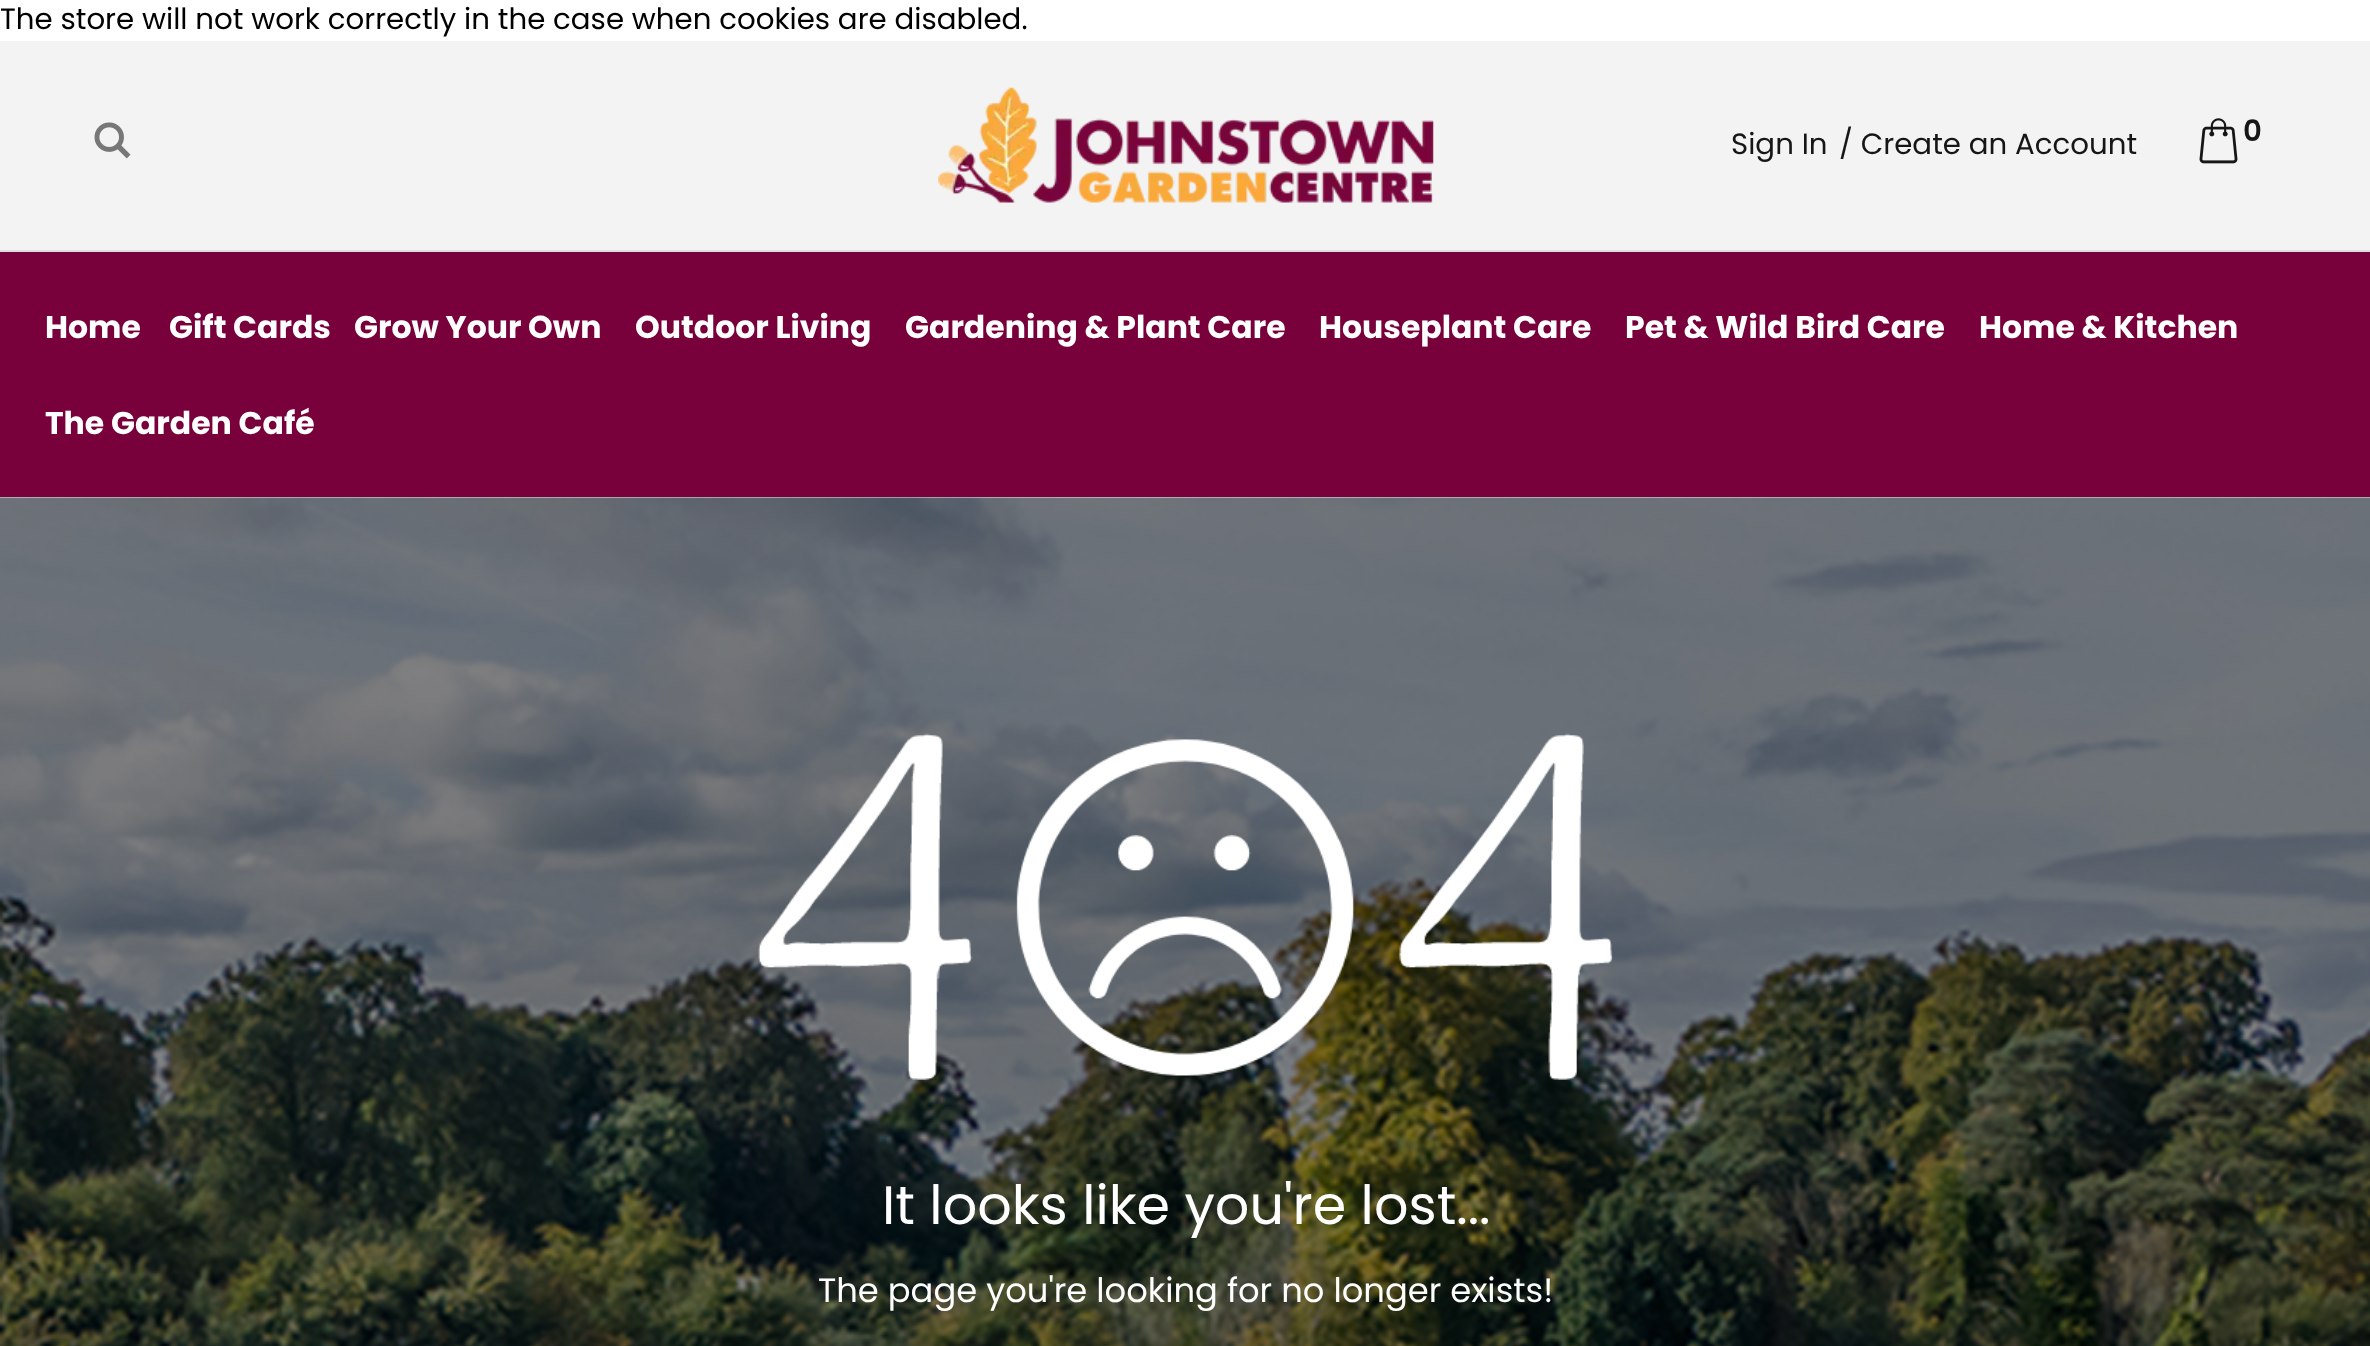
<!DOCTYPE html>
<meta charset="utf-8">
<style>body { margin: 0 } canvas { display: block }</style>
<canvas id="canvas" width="2370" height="1346"></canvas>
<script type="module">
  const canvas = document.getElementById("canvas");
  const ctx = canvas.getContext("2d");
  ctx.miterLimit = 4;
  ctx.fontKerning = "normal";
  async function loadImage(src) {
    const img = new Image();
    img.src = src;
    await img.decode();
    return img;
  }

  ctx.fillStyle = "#ffffff";
  ctx.fillRect(0, 0, 2370, 1346);
  ctx.font = "29.25px Poppins";
  ctx.fillStyle = "#000000";
  ctx.fillText("The store will not work correctly in the case when cookies are disabled.", 0, 29);
  ctx.fillStyle = "#f3f3f3";
  ctx.fillRect(0, 41, 2370, 209);
  ctx.drawImage(await loadImage("img1.png"), 94, 122, 37, 37);
  ctx.drawImage(await loadImage("img2.png"), 938, 87, 496, 116);
  ctx.fillStyle = "#161616";
  ctx.fillText("Sign In", 1731, 154);
  ctx.fillText("/ Create an Account", 1839, 154);
  ctx.drawImage(await loadImage("img3.png"), 2199, 118, 39, 46);
  ctx.font = "600 29.25px Poppins";
  ctx.fillText("0", 2243, 141);
  ctx.fillStyle = "#79013b";
  ctx.fillRect(0, 252, 2370, 245);
  ctx.fillStyle = "#dddddd";
  ctx.fillRect(0, 250, 2370, 2);
  ctx.font = "bold 31.5px Poppins";
  ctx.fillStyle = "#ffffff";
  ctx.fillText("Home", 45, 338);
  ctx.fillText("Gift Cards", 169, 338);
  ctx.fillText("Grow Your Own", 354, 338);
  ctx.fillText("Outdoor Living", 635, 338);
  ctx.fillText("Gardening & Plant Care", 905, 338);
  ctx.fillText("Houseplant Care", 1319, 338);
  ctx.fillText("Pet & Wild Bird Care", 1625, 338);
  ctx.fillText("Home & Kitchen", 1979, 338);
  ctx.fillText("The Garden Café", 45, 434);
  ctx.drawImage(await loadImage("img4.png"), 0, 497, 2370, 849);
  ctx.drawImage(await loadImage("img5.png"), 758, 733, 855, 347);
  ctx.font = "54px Poppins";
  ctx.fillText("It looks like you're lost...", 882, 1224);
  ctx.font = "33.75px Poppins";
  ctx.fillText("The page you're looking for no longer exists!", 818, 1302);
</script>
